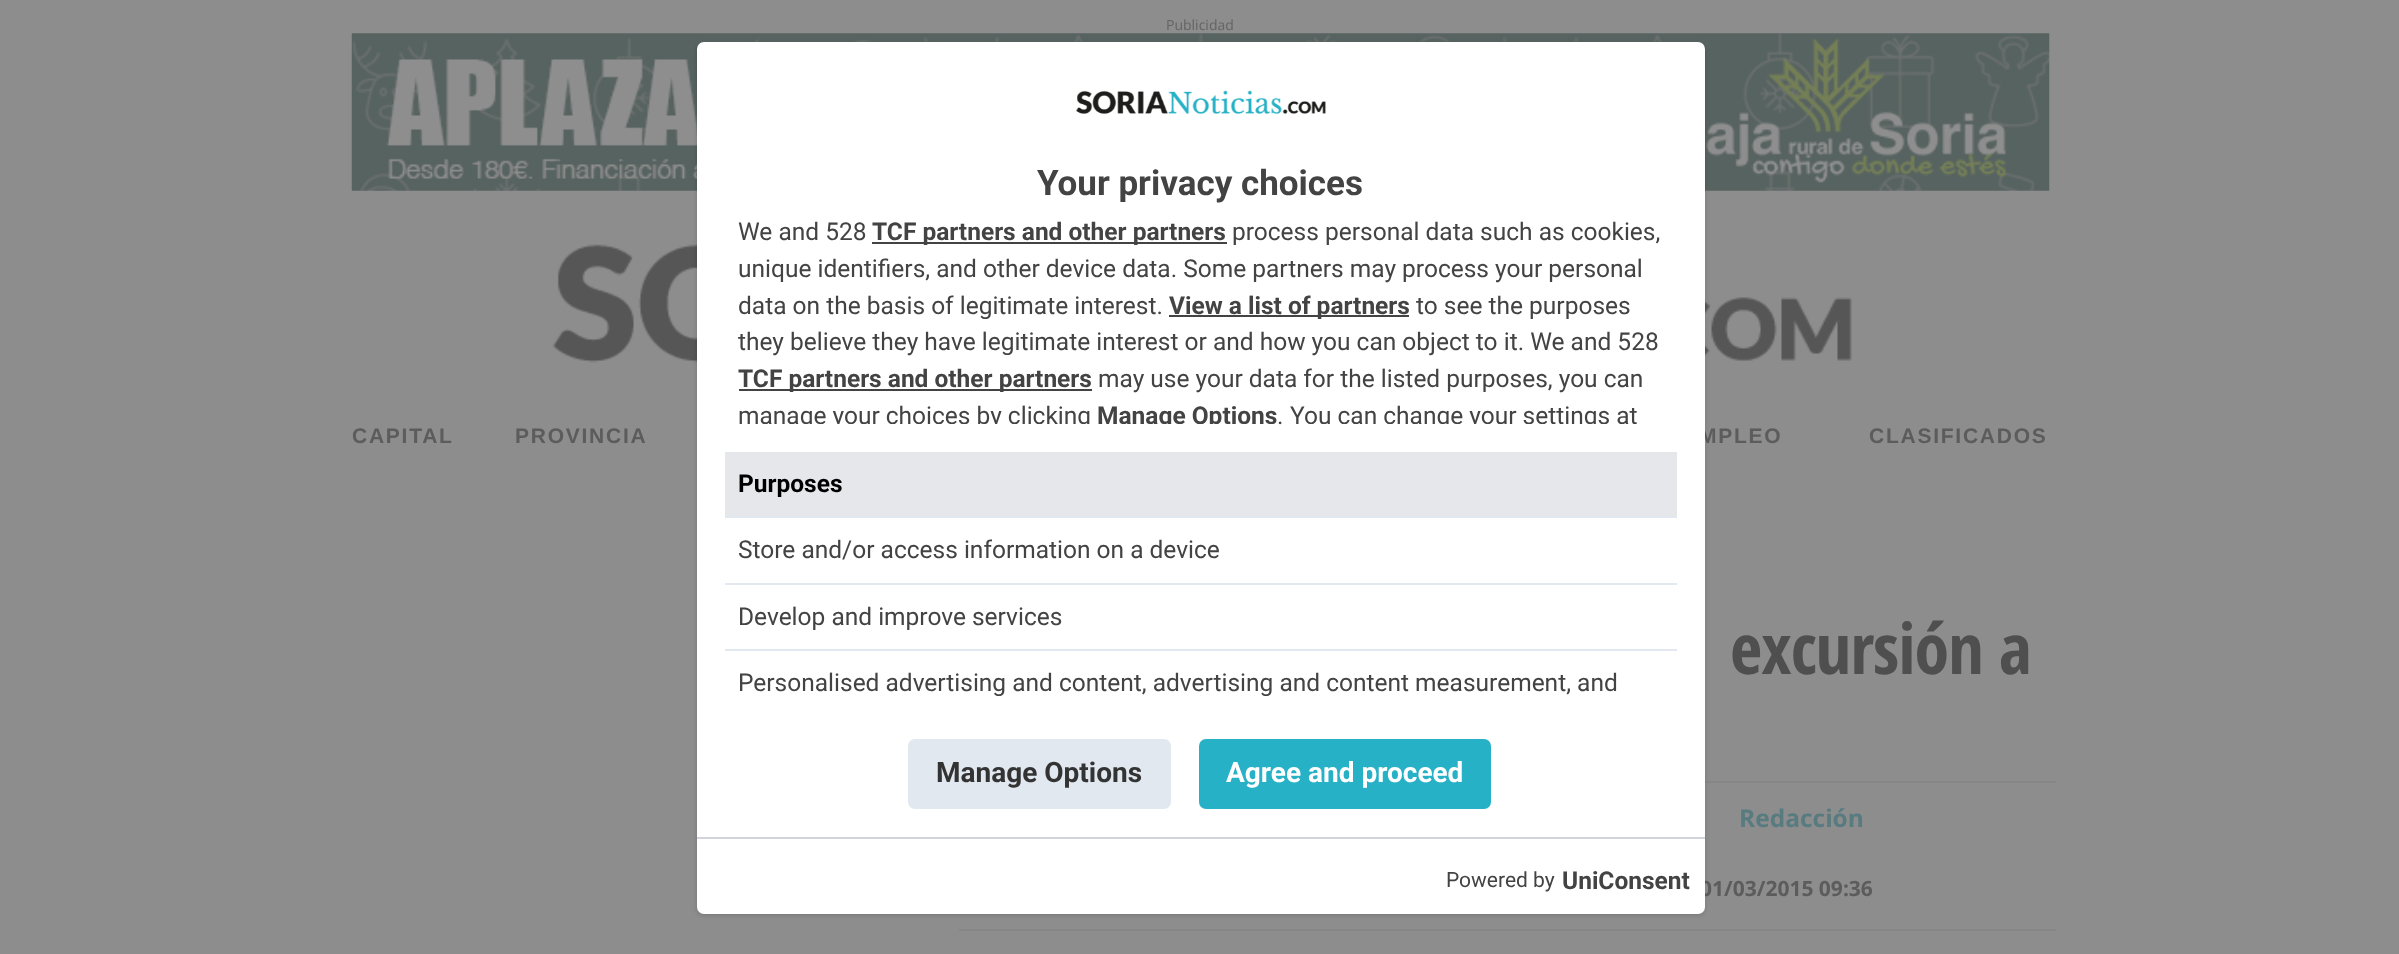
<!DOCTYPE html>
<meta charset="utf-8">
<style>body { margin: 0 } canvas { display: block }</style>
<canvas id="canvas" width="2399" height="954"></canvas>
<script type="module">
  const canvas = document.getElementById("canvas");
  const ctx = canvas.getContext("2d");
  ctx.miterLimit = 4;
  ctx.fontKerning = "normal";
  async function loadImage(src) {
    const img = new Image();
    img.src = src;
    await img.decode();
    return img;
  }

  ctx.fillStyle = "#8d8d8d";
  ctx.fillRect(0, 0, 2399, 954);
  ctx.font = "14px Open Sans";
  ctx.fillStyle = "#646464";
  ctx.fillText("Publicidad", 1166, 30);
  ctx.drawImage(await loadImage("img1.png"), 351, 33, 1699, 158);
  ctx.drawImage(await loadImage("img2.png"), 552, 244, 1300, 119);
  ctx.letterSpacing = "1.75px";
  ctx.font = "bold 21px Liberation Sans";
  ctx.fillStyle = "#5c5c5c";
  ctx.fillText("CAPITAL", 352, 443);
  ctx.fillText("PROVINCIA", 515, 443);
  ctx.fillText("MPLEO", 1699, 443);
  ctx.fillText("CLASIFICADOS", 1869, 443);
  ctx.letterSpacing = "-0.9px";
  ctx.font = "bold 70px Open Sans Condensed";
  ctx.fillStyle = "#4f4f4f";
  ctx.fillText("excursión a", 1730, 674);
  ctx.fillStyle = "#868686";
  ctx.fillRect(1705, 781, 351, 2);
  ctx.fillRect(959, 929, 1097, 2);
  ctx.letterSpacing = "0px";
  ctx.font = "bold 24.5px Open Sans";
  ctx.fillStyle = "#587b80";
  ctx.fillText("Redacción", 1739, 827);
  ctx.font = "bold 21px Open Sans";
  ctx.fillStyle = "#5c5c5c";
  ctx.fillText("01/03/2015 09:36", 1700, 896);
  ctx.fillStyle = "rgba(0, 0, 0, 0.1)";
  ctx.filter = "blur(2px)";
  ctx.beginPath();
  ctx.roundRect(698, 46, 1005, 868, 5);
  ctx.fill();
  ctx.filter = "none";
  ctx.filter = "blur(2.5px)";
  ctx.beginPath();
  ctx.roundRect(697, 44, 1008, 871, 7);
  ctx.fill();
  ctx.filter = "none";
  ctx.fillStyle = "#ffffff";
  ctx.beginPath();
  ctx.roundRect(697, 42, 1008, 872, 7);
  ctx.fill();
  ctx.drawImage(await loadImage("img3.png"), 1076, 90, 250, 24);
  ctx.font = "bold 35px Roboto";
  ctx.fillStyle = "#434343";
  ctx.fillText("Your privacy choices", 1037, 195);
  ctx.font = "24.5px Roboto";
  ctx.fillText("We and 528", 738, 240);
  ctx.fillRect(872, 242, 355, 2);
  ctx.font = "bold 24.5px Roboto";
  ctx.fillText("TCF partners and other partners", 872, 240);
  ctx.font = "24.5px Roboto";
  ctx.fillText("process personal data such as cookies,", 1232, 240);
  ctx.fillText("unique identifiers, and other device data. Some partners may process your personal", 738, 277);
  ctx.fillText("data on the basis of legitimate interest.", 738, 314);
  ctx.fillRect(1169, 315, 240, 2);
  ctx.font = "bold 24.5px Roboto";
  ctx.fillText("View a list of partners", 1169, 314);
  ctx.font = "24.5px Roboto";
  ctx.fillText("to see the purposes", 1416, 314);
  ctx.fillText("they believe they have legitimate interest or and how you can object to it. We and 528", 738, 350);
  ctx.fillRect(739, 389, 353, 2);
  ctx.font = "bold 24.5px Roboto";
  ctx.fillText("TCF partners and other partners", 738, 387);
  ctx.font = "24.5px Roboto";
  ctx.fillText("may use your data for the listed purposes, you can", 1098, 387);
  ctx.save();
  ctx.beginPath();
  ctx.rect(697, 137, 1008, 287);
  ctx.clip();
  ctx.fillText("manage your choices by clicking", 738, 424);
  ctx.font = "bold 24.5px Roboto";
  ctx.fillText("Manage Options", 1097, 424);
  ctx.restore();
  ctx.fillText(".", 1277, 424);
  ctx.save();
  ctx.beginPath();
  ctx.rect(697, 137, 1008, 287);
  ctx.clip();
  ctx.fillText("You can change your settings at", 1290, 424);
  ctx.restore();
  ctx.fillStyle = "#e5e7eb";
  ctx.fillRect(725, 452, 952, 64);
  ctx.fillStyle = "#e2e8f0";
  ctx.fillRect(725, 516, 952, 2);
  ctx.font = "bold 24.5px Roboto";
  ctx.fillStyle = "#000000";
  ctx.fillText("Purposes", 738, 492);
  ctx.fillStyle = "#e2e8f0";
  ctx.fillRect(725, 583, 952, 2);
  ctx.font = "24.5px Roboto";
  ctx.fillStyle = "#434343";
  ctx.fillText("Store and/or access information on a device", 738, 558);
  ctx.fillStyle = "#e2e8f0";
  ctx.fillRect(725, 649, 952, 2);
  ctx.fillStyle = "#434343";
  ctx.fillText("Develop and improve services", 738, 625);
  ctx.fillText("Personalised advertising and content, advertising and content measurement, and", 738, 691);
  ctx.fillStyle = "#e2e8f0";
  ctx.beginPath();
  ctx.roundRect(908, 739, 263, 70, 7);
  ctx.fill();
  ctx.font = "bold 28px Roboto";
  ctx.fillStyle = "#333333";
  ctx.fillText("Manage Options", 936, 782);
  ctx.fillStyle = "#27b1c6";
  ctx.beginPath();
  ctx.roundRect(1199, 739, 292, 70, 7);
  ctx.fill();
  ctx.fillStyle = "#ffffff";
  ctx.fillText("Agree and proceed", 1226, 782);
  ctx.fillStyle = "#d1d5db";
  ctx.fillRect(697, 837, 1008, 2);
  ctx.font = "21px Roboto";
  ctx.fillStyle = "#434343";
  ctx.fillText("Powered by", 1446, 887);
  ctx.font = "bold 24.5px Roboto";
  ctx.fillText("UniConsent", 1562, 889);
</script>
